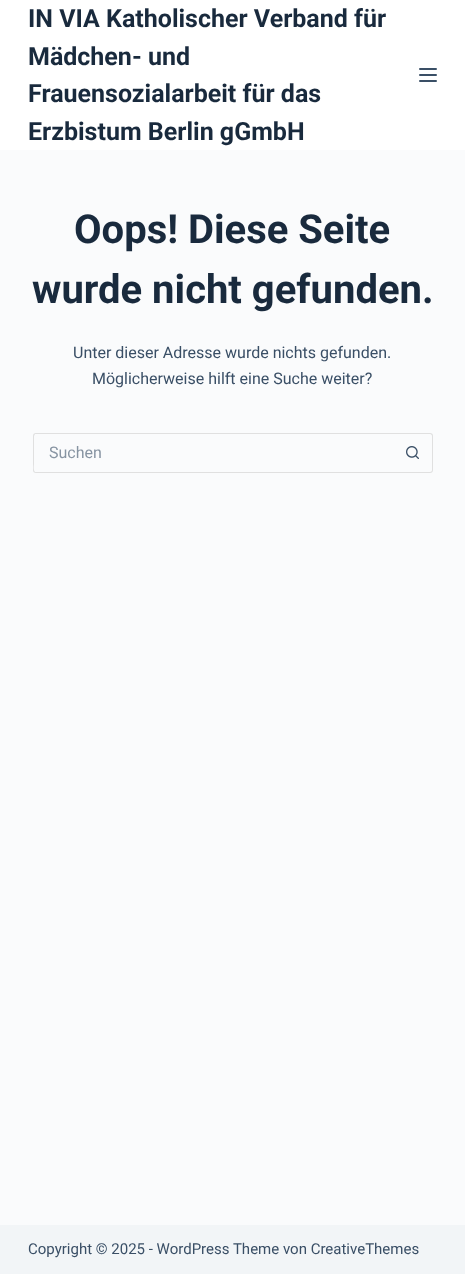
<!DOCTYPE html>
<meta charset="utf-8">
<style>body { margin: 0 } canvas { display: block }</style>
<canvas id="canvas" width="465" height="1274"></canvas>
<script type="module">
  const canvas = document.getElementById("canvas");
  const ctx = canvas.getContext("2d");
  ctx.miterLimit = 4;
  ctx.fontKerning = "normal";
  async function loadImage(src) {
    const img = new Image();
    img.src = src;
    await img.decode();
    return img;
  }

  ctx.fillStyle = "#fafbfc";
  ctx.fillRect(0, 0, 465, 1274);
  ctx.fillStyle = "#ffffff";
  ctx.fillRect(0, 0, 465, 150);
  ctx.font = "bold 25px Roboto";
  ctx.fillStyle = "#192a3d";
  ctx.fillText("IN VIA Katholischer Verband für", 28, 27);
  ctx.fillText("Mädchen- und", 28, 65);
  ctx.fillText("Frauensozialarbeit für das", 28, 102);
  ctx.fillText("Erzbistum Berlin gGmbH", 28, 140);
  ctx.fillStyle = "#3a4f66";
  ctx.beginPath();
  ctx.roundRect(419, 68, 18, 2, 1);
  ctx.fill();
  ctx.beginPath();
  ctx.roundRect(419, 74, 18, 2, 1);
  ctx.fill();
  ctx.beginPath();
  ctx.roundRect(419, 80, 18, 2, 1);
  ctx.fill();
  ctx.font = "bold 40px Roboto";
  ctx.fillStyle = "#192a3d";
  ctx.fillText("Oops! Diese Seite", 74, 243);
  ctx.fillText("wurde nicht gefunden.", 32, 303);
  ctx.font = "16px Roboto";
  ctx.fillStyle = "#3a4f66";
  ctx.fillText("Unter dieser Adresse wurde nichts gefunden.", 73, 358);
  ctx.fillText("Möglicherweise hilft eine Suche weiter?", 92, 384);
  ctx.fillStyle = "#e0e0e0";
  ctx.beginPath();
  ctx.moveTo(36, 433);
  ctx.lineTo(393, 433);
  ctx.lineTo(393, 473);
  ctx.lineTo(36, 473);
  ctx.bezierCurveTo(34, 473, 33, 472, 33, 470);
  ctx.lineTo(33, 436);
  ctx.bezierCurveTo(33, 434, 34, 433, 36, 433);
  ctx.closePath();
  ctx.moveTo(36, 434);
  ctx.lineTo(393, 434);
  ctx.lineTo(393, 472);
  ctx.lineTo(35, 472);
  ctx.bezierCurveTo(33, 470, 34, 465, 34, 464);
  ctx.lineTo(34, 436);
  ctx.lineTo(35, 434);
  ctx.closePath();
  ctx.fill("evenodd");
  ctx.fillStyle = "#8794a2";
  ctx.fillText("Suchen", 49, 458);
  ctx.fillStyle = "#e0e0e0";
  ctx.beginPath();
  ctx.moveTo(393, 433);
  ctx.lineTo(430, 433);
  ctx.bezierCurveTo(432, 433, 433, 434, 433, 436);
  ctx.lineTo(433, 470);
  ctx.bezierCurveTo(433, 472, 432, 473, 430, 473);
  ctx.lineTo(393, 473);
  ctx.closePath();
  ctx.moveTo(393, 434);
  ctx.lineTo(430, 434);
  ctx.bezierCurveTo(431, 434, 432, 435, 432, 436);
  ctx.lineTo(432, 470);
  ctx.bezierCurveTo(432, 471, 431, 472, 430, 472);
  ctx.lineTo(393, 472);
  ctx.closePath();
  ctx.fill("evenodd");
  ctx.drawImage(await loadImage("img1.png"), 406, 446, 13, 13);
  ctx.fillStyle = "#f2f5f7";
  ctx.fillRect(0, 1225, 465, 49);
  ctx.font = "15px Roboto";
  ctx.fillStyle = "#3a4f66";
  ctx.fillText("Copyright © 2025 - WordPress Theme von CreativeThemes", 28, 1254);
</script>
